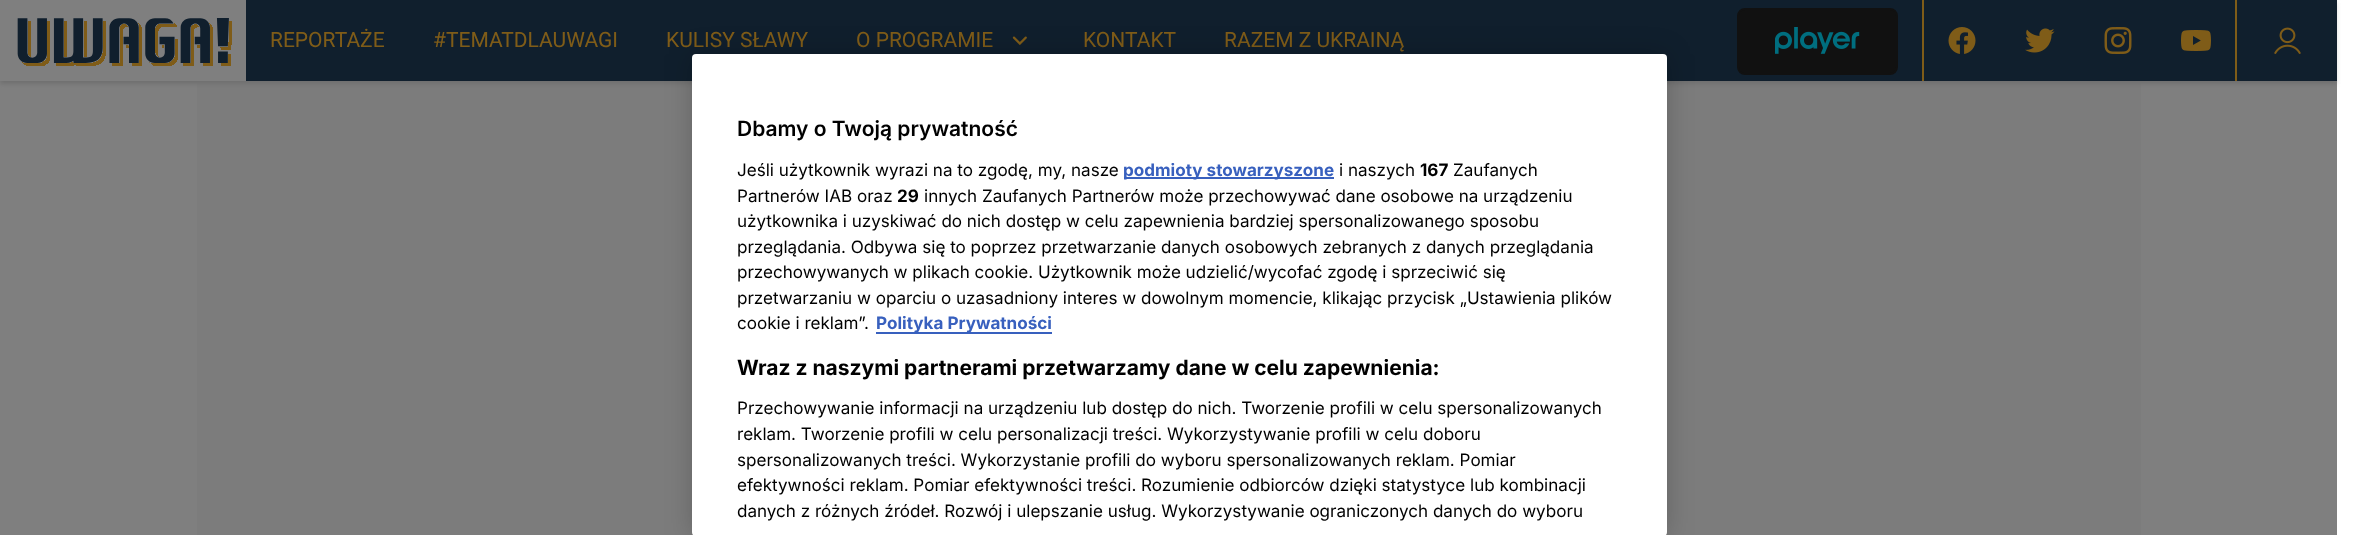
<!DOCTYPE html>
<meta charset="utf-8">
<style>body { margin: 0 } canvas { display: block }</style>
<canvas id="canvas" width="2359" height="535"></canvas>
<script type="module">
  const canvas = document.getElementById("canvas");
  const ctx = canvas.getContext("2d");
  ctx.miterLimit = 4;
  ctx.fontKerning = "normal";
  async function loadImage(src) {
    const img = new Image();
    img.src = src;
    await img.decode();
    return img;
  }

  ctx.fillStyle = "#ffffff";
  ctx.fillRect(0, 0, 2359, 535);
  ctx.fillStyle = "#f9f9f9";
  ctx.fillRect(197, 81, 1944, 454);
  ctx.fillStyle = "#dfdfdf";
  ctx.filter = "blur(2px)";
  ctx.beginPath();
  ctx.rect(0, 3, 2337, 81);
  ctx.fill();
  ctx.filter = "none";
  ctx.fillStyle = "#203e5a";
  ctx.fillRect(246, 0, 2091, 81);
  ctx.fillStyle = "#ffffff";
  ctx.fillRect(0, 0, 246, 81);
  ctx.drawImage(await loadImage("img1.png"), 17, 18, 215, 48);
  ctx.font = "21px Roboto";
  ctx.fillStyle = "#ffb931";
  ctx.fillText("REPORTAŻE", 270, 47);
  ctx.fillText("#TEMATDLAUWAGI", 433, 47);
  ctx.fillText("KULISY SŁAWY", 666, 47);
  ctx.fillText("O PROGRAMIE", 856, 47);
  ctx.drawImage(await loadImage("img2.png"), 1012, 36, 15, 9);
  ctx.fillText("KONTAKT", 1083, 47);
  ctx.fillText("RAZEM Z UKRAINĄ", 1224, 47);
  ctx.fillStyle = "#222222";
  ctx.beginPath();
  ctx.roundRect(1738, 9, 159, 65, 7);
  ctx.fill();
  ctx.strokeStyle = "#222222";
  ctx.lineWidth = 2;
  ctx.stroke();
  ctx.drawImage(await loadImage("img3.png"), 1775, 27, 85, 27);
  ctx.fillStyle = "#ffb931";
  ctx.fillRect(1922, 0, 2, 81);
  ctx.drawImage(await loadImage("img4.png"), 1948, 27, 28, 27);
  ctx.drawImage(await loadImage("img5.png"), 2025, 28, 30, 25);
  ctx.drawImage(await loadImage("img6.png"), 2104, 27, 28, 27);
  ctx.drawImage(await loadImage("img7.png"), 2181, 30, 30, 21);
  ctx.fillRect(2235, 0, 2, 81);
  ctx.drawImage(await loadImage("img8.png"), 2274, 27, 27, 27);
  ctx.fillStyle = "rgba(0, 0, 0, 0.5)";
  ctx.fillRect(0, 0, 2337, 535);
  ctx.fillStyle = "rgba(0, 0, 0, 0.2)";
  ctx.filter = "blur(13.5px)";
  ctx.beginPath();
  ctx.roundRect(692, 54, 975, 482, 4);
  ctx.fill();
  ctx.filter = "none";
  ctx.fillStyle = "#ffffff";
  ctx.beginPath();
  ctx.roundRect(692, 54, 975, 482, 4);
  ctx.fill();
  ctx.font = "600 21px Inter";
  ctx.fillStyle = "#000000";
  ctx.fillText("Dbamy o Twoją prywatność", 737, 136);
  ctx.font = "17.07px Inter";
  ctx.fillText("Jeśli użytkownik wyrazi na to zgodę, my, nasze", 737, 176);
  ctx.fillStyle = "#3860be";
  ctx.fillRect(1124, 177, 210, 2);
  ctx.font = "bold 17.07px Inter";
  ctx.fillText("podmioty stowarzyszone", 1123, 176);
  ctx.font = "17.07px Inter";
  ctx.fillStyle = "#000000";
  ctx.fillText("i naszych", 1339, 176);
  ctx.font = "bold 17.07px Inter";
  ctx.fillText("167", 1420, 176);
  ctx.font = "17.07px Inter";
  ctx.fillText("Zaufanych", 1453, 176);
  ctx.fillText("Partnerów IAB oraz", 737, 202);
  ctx.font = "bold 17.07px Inter";
  ctx.fillText("29", 897, 202);
  ctx.font = "17.07px Inter";
  ctx.fillText("innych Zaufanych Partnerów może przechowywać dane osobowe na urządzeniu", 924, 202);
  ctx.fillText("użytkownika i uzyskiwać do nich dostęp w celu zapewnienia bardziej spersonalizowanego sposobu", 737, 227);
  ctx.fillText("przeglądania. Odbywa się to poprzez przetwarzanie danych osobowych zebranych z danych przeglądania", 737, 253);
  ctx.fillText("przechowywanych w plikach cookie. Użytkownik może udzielić/wycofać zgodę i sprzeciwić się", 737, 278);
  ctx.fillText("przetwarzaniu w oparciu o uzasadniony interes w dowolnym momencie, klikając przycisk „Ustawienia plików", 737, 304);
  ctx.fillText("cookie i reklam”.", 737, 329);
  ctx.fillStyle = "#3860be";
  ctx.fillRect(876, 332, 176, 2);
  ctx.font = "bold 17.07px Inter";
  ctx.fillText("Polityka Prywatności", 876, 329);
  ctx.font = "bold 21px Inter";
  ctx.fillStyle = "#000000";
  ctx.fillText("Wraz z naszymi partnerami przetwarzamy dane w celu zapewnienia:", 737, 375);
  ctx.font = "17.07px Inter";
  ctx.fillText("Przechowywanie informacji na urządzeniu lub dostęp do nich. Tworzenie profili w celu spersonalizowanych", 737, 414);
  ctx.fillText("reklam. Tworzenie profili w celu personalizacji treści. Wykorzystywanie profili w celu doboru", 737, 440);
  ctx.fillText("spersonalizowanych treści. Wykorzystanie profili do wyboru spersonalizowanych reklam. Pomiar", 737, 466);
  ctx.fillText("efektywności reklam. Pomiar efektywności treści. Rozumienie odbiorców dzięki statystyce lub kombinacji", 737, 491);
  ctx.fillText("danych z różnych źródeł. Rozwój i ulepszanie usług. Wykorzystywanie ograniczonych danych do wyboru", 737, 517);
</script>
